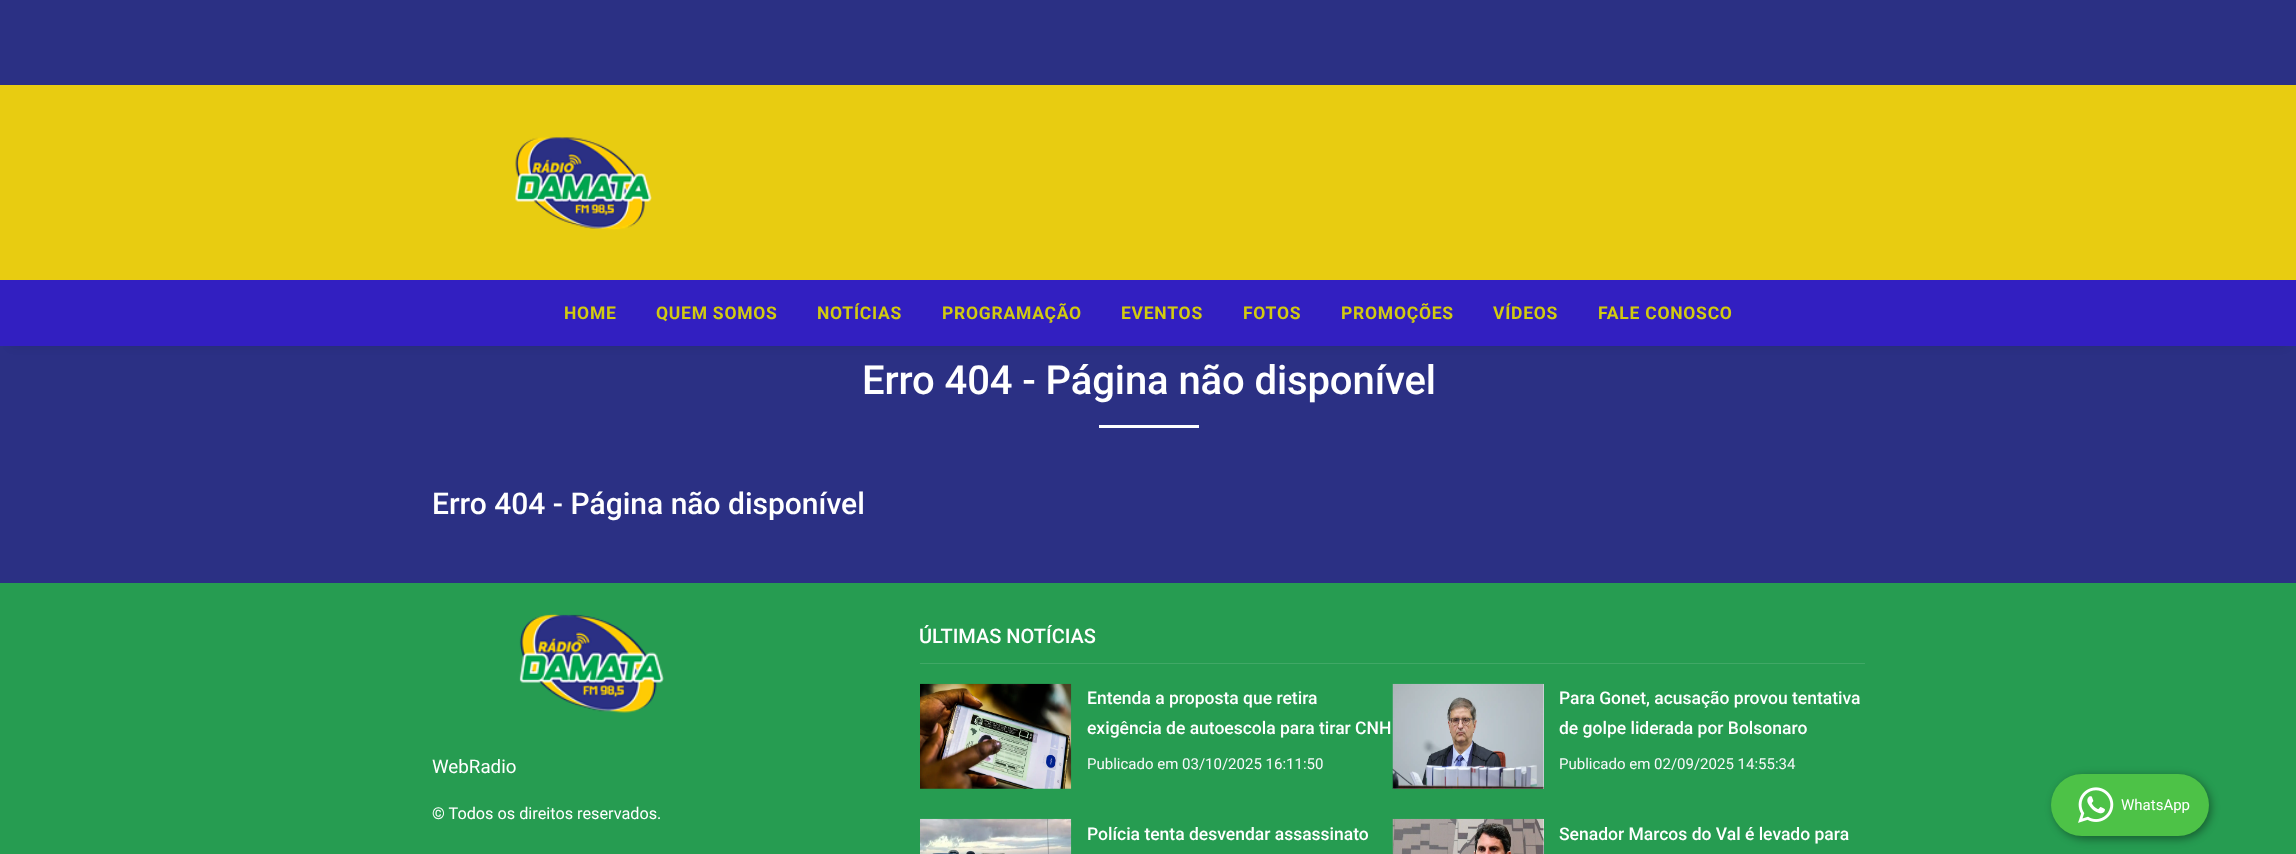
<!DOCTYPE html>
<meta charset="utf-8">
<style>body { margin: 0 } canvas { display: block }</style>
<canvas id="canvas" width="2296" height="854"></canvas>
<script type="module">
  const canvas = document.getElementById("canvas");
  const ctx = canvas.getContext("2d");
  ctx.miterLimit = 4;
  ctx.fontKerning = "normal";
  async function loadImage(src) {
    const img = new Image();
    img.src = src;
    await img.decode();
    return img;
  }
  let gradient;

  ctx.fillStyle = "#2b3084";
  ctx.fillRect(0, 0, 2296, 854);
  ctx.fillStyle = "#e8cc11";
  ctx.fillRect(0, 85, 2296, 195);
  ctx.drawImage(await loadImage("img1.png"), 515, 137, 137, 93);
  ctx.fillStyle = "rgba(0, 0, 0, 0.1)";
  ctx.filter = "blur(5px)";
  ctx.beginPath();
  ctx.rect(10, 300, 2276, 46);
  ctx.fill();
  ctx.filter = "none";
  ctx.fillStyle = "#321fc1";
  ctx.fillRect(0, 280, 2296, 66);
  ctx.letterSpacing = "0.75px";
  ctx.font = "bold 17.5px Roboto";
  ctx.fillStyle = "#d2cb0f";
  ctx.fillText("HOME", 564, 319);
  ctx.fillText("QUEM SOMOS", 656, 319);
  ctx.fillText("NOTÍCIAS", 817, 319);
  ctx.fillText("PROGRAMAÇÃO", 942, 319);
  ctx.fillText("EVENTOS", 1121, 319);
  ctx.fillText("FOTOS", 1243, 319);
  ctx.fillText("PROMOÇÕES", 1341, 319);
  ctx.fillText("VÍDEOS", 1493, 319);
  ctx.fillText("FALE CONOSCO", 1598, 319);
  ctx.letterSpacing = "-0.1px";
  ctx.font = "500 40px Roboto";
  ctx.fillStyle = "#ffffff";
  ctx.fillText("Erro 404 - Página não disponível", 862, 394);
  ctx.fillRect(1099, 425, 100, 3);
  ctx.letterSpacing = "0px";
  ctx.font = "500 30px Roboto";
  ctx.fillText("Erro 404 - Página não disponível", 432, 514);
  ctx.fillStyle = "#269c51";
  ctx.fillRect(0, 583, 2296, 271);
  ctx.drawImage(await loadImage("img2.png"), 519, 613, 145, 100);
  ctx.font = "18.75px Roboto";
  ctx.fillStyle = "#ffffff";
  ctx.fillText("WebRadio", 432, 773);
  ctx.font = "16.25px Roboto";
  ctx.fillText("© Todos os direitos reservados.", 432, 819);
  ctx.fillStyle = "#40a866";
  ctx.fillRect(920, 663, 945, 1);
  ctx.font = "500 20px Roboto";
  ctx.fillStyle = "#ffffff";
  ctx.fillText("ÚLTIMAS NOTÍCIAS", 919, 643);
  ctx.drawImage(await loadImage("img3.png"), 920, 683, 152, 106);
  ctx.font = "500 17.5px Roboto";
  ctx.fillText("Entenda a proposta que retira", 1087, 704);
  ctx.fillText("exigência de autoescola para tirar CNH", 1087, 734);
  ctx.font = "15px Roboto";
  ctx.fillStyle = "#f8f9fa";
  ctx.fillText("Publicado em 03/10/2025 16:11:50", 1087, 769);
  gradient = ctx.createLinearGradient(1771, 736, 1166, 736);
  gradient.addColorStop(0, "#f8f9fa");
  gradient.addColorStop(0.15, "#ced4da");
  gradient.addColorStop(0.4, "#f8f9fa");
  gradient.addColorStop(1, "#f8f9fa");
  ctx.fillStyle = gradient;
  ctx.fillRect(1393, 684, 151, 105);
  ctx.drawImage(await loadImage("img4.png"), 1392, 683, 152, 106);
  ctx.font = "500 17.5px Roboto";
  ctx.fillStyle = "#ffffff";
  ctx.fillText("Para Gonet, acusação provou tentativa", 1559, 704);
  ctx.fillText("de golpe liderada por Bolsonaro", 1559, 734);
  ctx.font = "15px Roboto";
  ctx.fillStyle = "#f8f9fa";
  ctx.fillText("Publicado em 02/09/2025 14:55:34", 1559, 769);
  ctx.drawImage(await loadImage("img5.png"), 920, 818, 152, 36);
  ctx.font = "500 17.5px Roboto";
  ctx.fillStyle = "#ffffff";
  ctx.fillText("Polícia tenta desvendar assassinato", 1087, 840);
  gradient = ctx.createLinearGradient(1771, 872, 1166, 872);
  gradient.addColorStop(0, "#f8f9fa");
  gradient.addColorStop(0.15, "#ced4da");
  gradient.addColorStop(0.4, "#f8f9fa");
  gradient.addColorStop(1, "#f8f9fa");
  ctx.fillStyle = gradient;
  ctx.fillRect(1543, 819, 1, 35);
  ctx.drawImage(await loadImage("img6.png"), 1392, 818, 152, 36);
  ctx.fillStyle = "#ffffff";
  ctx.fillText("Senador Marcos do Val é levado para", 1559, 840);
  ctx.fillStyle = "rgba(0, 0, 0, 0.4)";
  ctx.filter = "blur(4px)";
  ctx.beginPath();
  ctx.roundRect(2054, 776, 157, 63, 31.5);
  ctx.fill();
  ctx.filter = "none";
  ctx.fillStyle = "#4dc247";
  ctx.beginPath();
  ctx.roundRect(2051, 774, 158, 62, 31);
  ctx.fill();
  ctx.drawImage(await loadImage("img7.png"), 2078, 787, 36, 36);
  ctx.font = "15px Roboto";
  ctx.fillStyle = "#ffffff";
  ctx.fillText("WhatsApp", 2121, 810);
</script>
